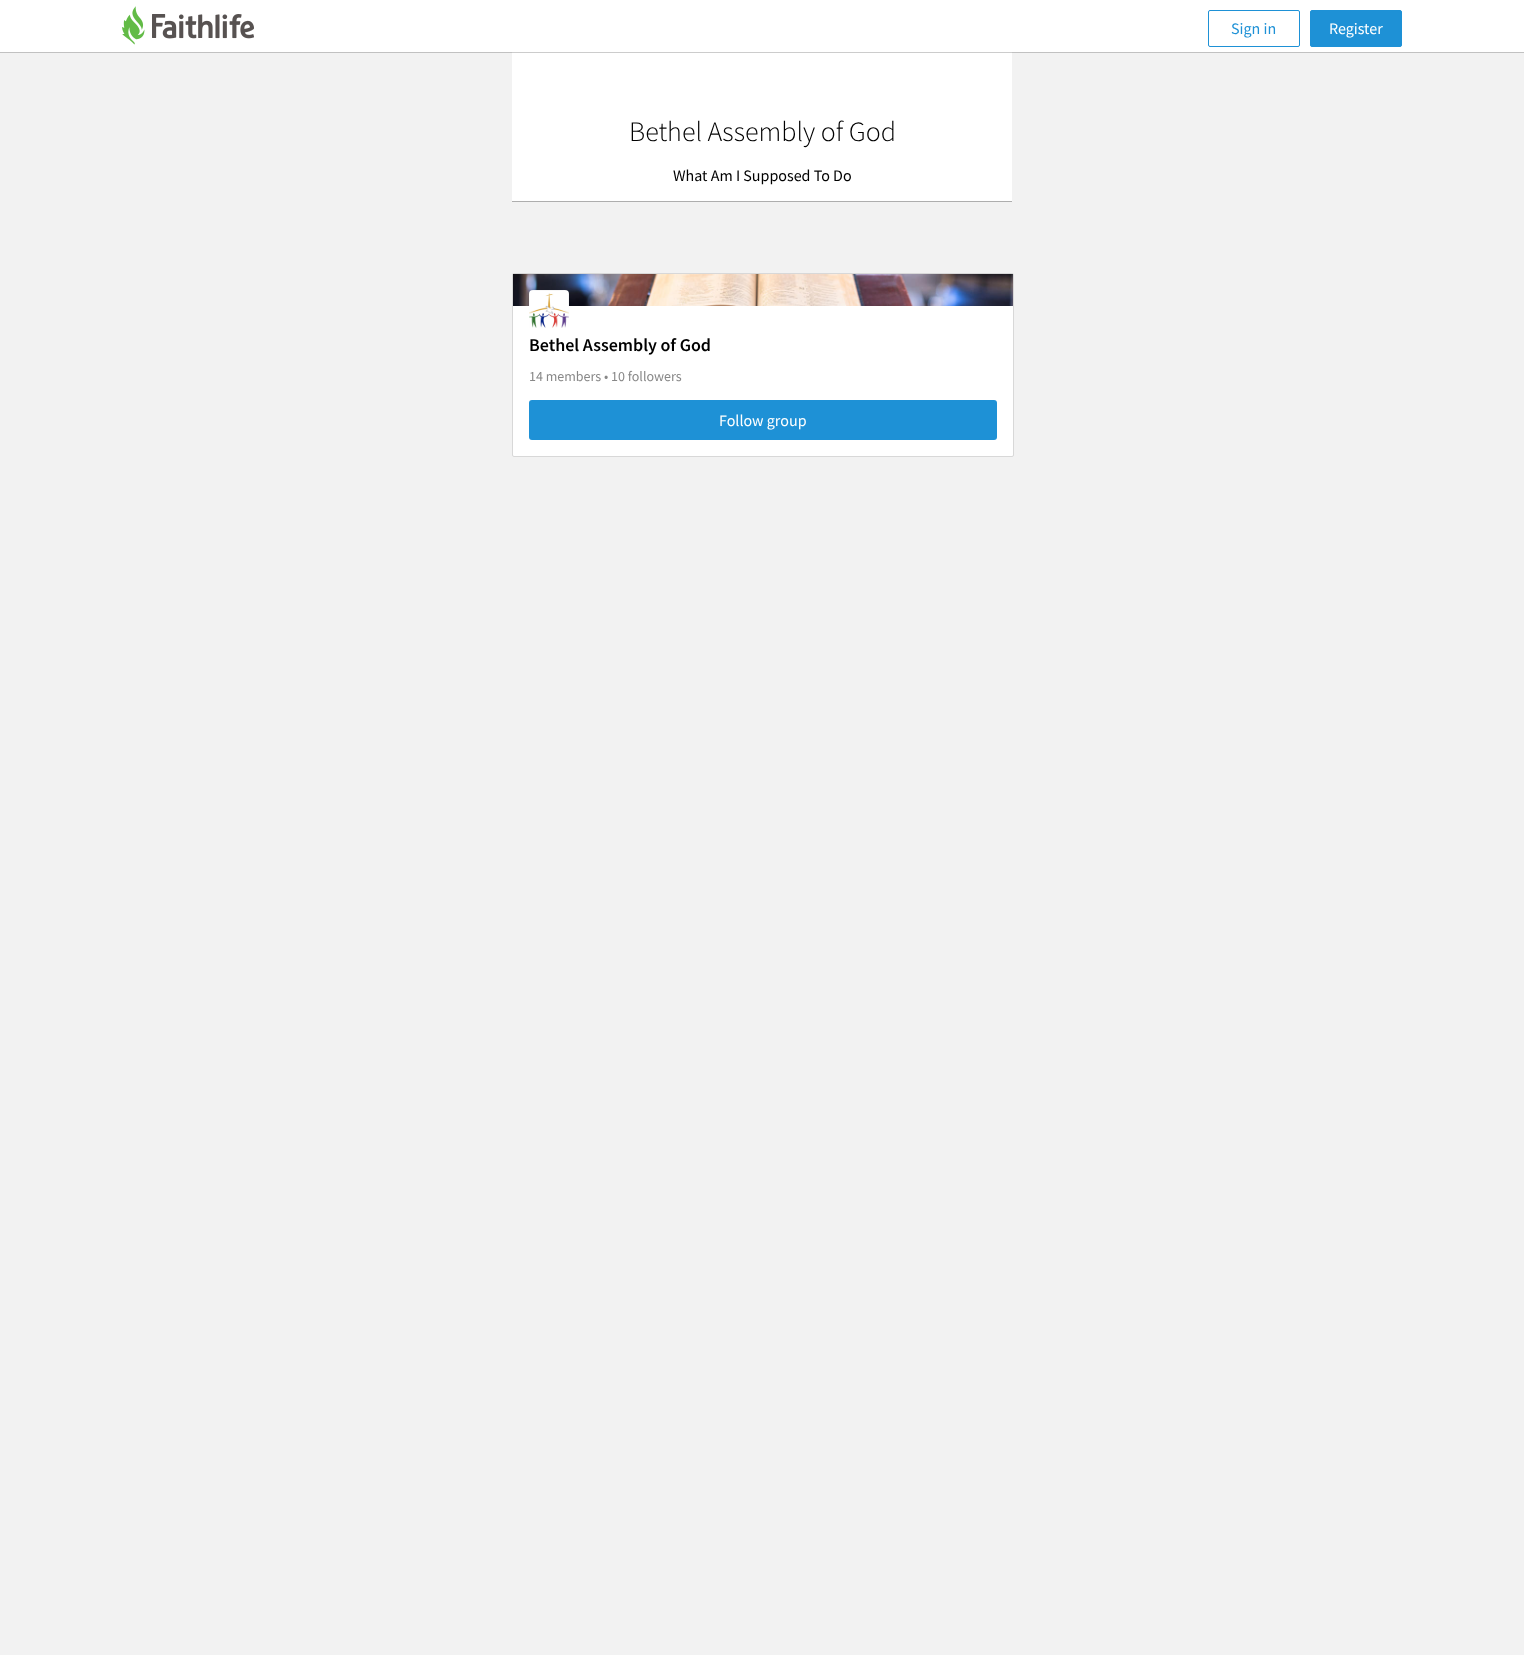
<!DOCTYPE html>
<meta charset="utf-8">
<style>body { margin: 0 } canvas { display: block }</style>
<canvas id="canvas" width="1524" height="1655"></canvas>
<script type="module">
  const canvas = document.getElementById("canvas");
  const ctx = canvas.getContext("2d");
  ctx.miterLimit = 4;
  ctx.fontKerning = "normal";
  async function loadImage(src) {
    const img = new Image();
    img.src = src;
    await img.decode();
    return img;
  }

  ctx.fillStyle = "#f2f2f2";
  ctx.fillRect(0, 0, 1524, 1655);
  ctx.fillStyle = "rgba(156, 156, 156, 0.8)";
  ctx.filter = "blur(0.5px)";
  ctx.beginPath();
  ctx.rect(512, 53, 500, 149);
  ctx.fill();
  ctx.filter = "none";
  ctx.fillStyle = "#ffffff";
  ctx.fillRect(512, 52, 500, 149);
  ctx.fillStyle = "rgba(0, 0, 0, 0.2)";
  ctx.filter = "blur(0.5px)";
  ctx.beginPath();
  ctx.rect(0, 1, 1524, 52);
  ctx.fill();
  ctx.filter = "none";
  ctx.fillStyle = "#ffffff";
  ctx.fillRect(0, 0, 1524, 52);
  ctx.drawImage(await loadImage("img1.png"), 122, 6, 132, 39);
  ctx.beginPath();
  ctx.roundRect(1208.5, 10.5, 91, 36, 1.5);
  ctx.strokeStyle = "#1e91d6";
  ctx.stroke();
  ctx.font = "16px Source Sans Pro";
  ctx.fillStyle = "#1e91d6";
  ctx.fillText("Sign in", 1231, 34);
  ctx.beginPath();
  ctx.roundRect(1310.5, 10.5, 91, 36, 1.5);
  ctx.fill();
  ctx.stroke();
  ctx.fillStyle = "#ffffff";
  ctx.fillText("Register", 1329, 34);
  ctx.font = "300 28px Source Sans Pro";
  ctx.fillStyle = "#000000";
  ctx.fillText("Bethel Assembly of God", 629, 141);
  ctx.font = "16px Source Sans Pro";
  ctx.fillText("What Am I Supposed To Do", 673, 181);
  ctx.fillStyle = "#ffffff";
  ctx.beginPath();
  ctx.roundRect(512.5, 273.5, 501, 183, 1.5);
  ctx.fill();
  ctx.strokeStyle = "#d8d8d8";
  ctx.stroke();
  ctx.drawImage(await loadImage("img2.png"), 513, 274, 500, 32);
  ctx.drawImage(await loadImage("img3.png"), 529, 290, 40, 38);
  ctx.font = "600 18px Source Sans Pro";
  ctx.fillStyle = "#000000";
  ctx.fillText("Bethel Assembly of God", 529, 351);
  ctx.font = "14px Source Sans Pro";
  ctx.fillStyle = "#888888";
  ctx.fillText("14 members • 10 followers", 529, 381);
  ctx.fillStyle = "#1e91d6";
  ctx.beginPath();
  ctx.roundRect(529, 400, 468, 40, 3);
  ctx.fill();
  ctx.font = "16px Source Sans Pro";
  ctx.fillStyle = "#ffffff";
  ctx.fillText("Follow group", 719, 426);
</script>
